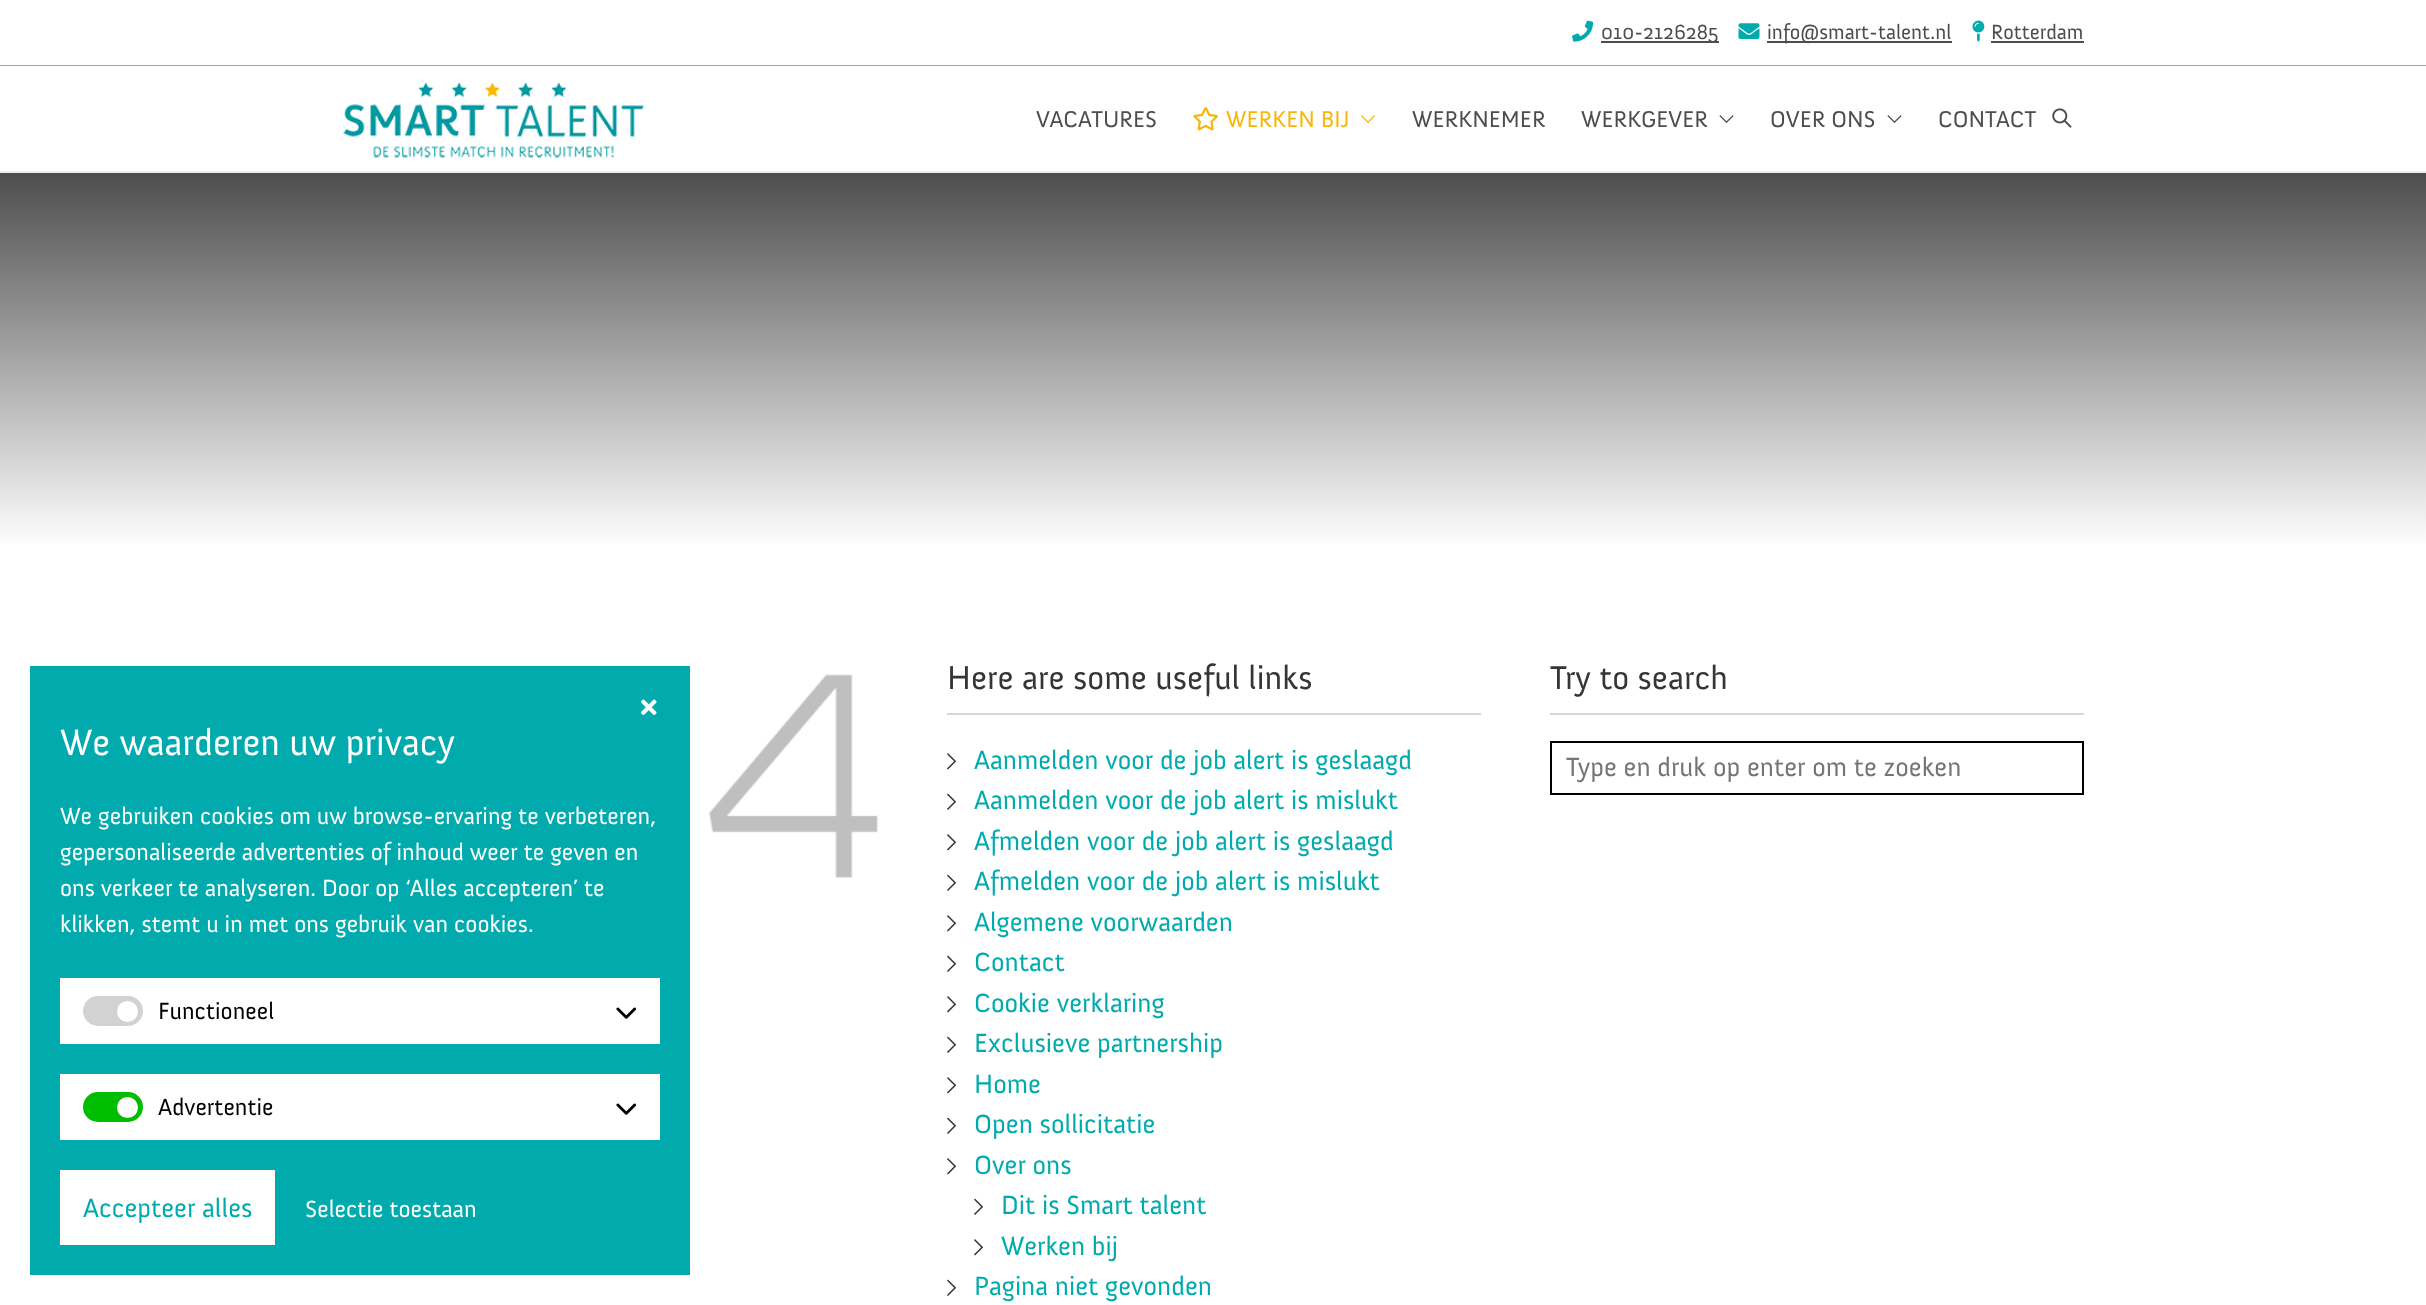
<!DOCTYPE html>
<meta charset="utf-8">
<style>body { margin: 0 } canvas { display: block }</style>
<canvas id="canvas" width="2426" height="1305"></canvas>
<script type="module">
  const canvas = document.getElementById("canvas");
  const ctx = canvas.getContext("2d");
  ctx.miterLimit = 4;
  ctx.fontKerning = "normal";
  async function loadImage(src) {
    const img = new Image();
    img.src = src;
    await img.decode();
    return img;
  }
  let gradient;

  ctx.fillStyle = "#ffffff";
  ctx.fillRect(0, 0, 2426, 1305);
  ctx.fillStyle = "#00aaad";
  ctx.fillRect(30, 666, 660, 609);
  ctx.drawImage(await loadImage("img1.png"), 641, 699, 16, 16);
  ctx.font = "37.5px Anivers";
  ctx.fillStyle = "#ffffff";
  ctx.fillText("We waarderen uw privacy", 60, 755);
  ctx.font = "24px Anivers";
  ctx.fillText("We gebruiken cookies om uw browse-ervaring te verbeteren,", 60, 824);
  ctx.fillText("gepersonaliseerde advertenties of inhoud weer te geven en", 60, 860);
  ctx.fillText("ons verkeer te analyseren. Door op ‘Alles accepteren’ te", 60, 896);
  ctx.fillText("klikken, stemt u in met ons gebruik van cookies.", 60, 932);
  ctx.fillRect(60, 978, 600, 66);
  ctx.fillStyle = "#d2d2d2";
  ctx.beginPath();
  ctx.roundRect(83, 996, 60, 30, 15);
  ctx.fill();
  ctx.fillStyle = "#ffffff";
  ctx.beginPath();
  ctx.arc(127.5, 1011.5, 10.5, 0, Math.PI * 2);
  ctx.fill();
  ctx.fillStyle = "#000000";
  ctx.fillText("Functioneel", 158, 1019);
  ctx.drawImage(await loadImage("img2.png"), 616, 1007, 21, 12);
  ctx.fillStyle = "#ffffff";
  ctx.fillRect(60, 1074, 600, 66);
  ctx.fillStyle = "#00bd00";
  ctx.beginPath();
  ctx.roundRect(83, 1092, 60, 30, 15);
  ctx.fill();
  ctx.fillStyle = "#ffffff";
  ctx.beginPath();
  ctx.arc(127.5, 1107.5, 10.5, 0, Math.PI * 2);
  ctx.fill();
  ctx.fillStyle = "#000000";
  ctx.fillText("Advertentie", 158, 1115);
  ctx.drawImage(await loadImage("img2.png"), 616, 1103, 21, 12);
  ctx.fillStyle = "#ffffff";
  ctx.fillRect(60, 1170, 215, 75);
  ctx.font = "27px Anivers";
  ctx.fillStyle = "#00aaad";
  ctx.fillText("Accepteer alles", 83, 1217);
  ctx.font = "24px Anivers";
  ctx.fillStyle = "#ffffff";
  ctx.fillText("Selectie toestaan", 305, 1217);
  ctx.fillStyle = "#a3a3a3";
  ctx.fillRect(0, 65, 2426, 1);
  ctx.drawImage(await loadImage("img3.png"), 1572, 20, 21, 22);
  ctx.fillStyle = "#4d4d4d";
  ctx.fillRect(1601, 41, 118, 2);
  ctx.font = "21px Anivers";
  ctx.fillText("010-2126285", 1601, 39);
  ctx.drawImage(await loadImage("img4.png"), 1738, 23, 22, 16);
  ctx.fillRect(1767, 41, 185, 2);
  ctx.fillText("info@smart-talent.nl", 1767, 39);
  ctx.drawImage(await loadImage("img5.png"), 1972, 20, 13, 22);
  ctx.fillText("Rotterdam", 1991, 39);
  ctx.fillRect(1991, 41, 93, 2);
  ctx.fillStyle = "#ededed";
  ctx.fillRect(0, 171, 2426, 2);
  ctx.drawImage(await loadImage("img6.png"), 343, 82, 301, 76);
  ctx.font = "23.5px Anivers";
  ctx.fillStyle = "#4d4d4d";
  ctx.fillText("VACATURES", 1036, 127);
  ctx.drawImage(await loadImage("img7.png"), 1193, 107, 25, 24);
  ctx.fillStyle = "#f7b607";
  ctx.fillText("WERKEN BIJ", 1226, 127);
  ctx.drawImage(await loadImage("img8.png"), 1361, 115, 14, 8);
  ctx.fillStyle = "#4d4d4d";
  ctx.fillText("WERKNEMER", 1412, 127);
  ctx.fillText("WERKGEVER", 1581, 127);
  ctx.drawImage(await loadImage("img9.png"), 1719, 115, 15, 8);
  ctx.fillText("OVER ONS", 1770, 127);
  ctx.drawImage(await loadImage("img9.png"), 1887, 115, 15, 8);
  ctx.fillText("CONTACT", 1938, 127);
  ctx.drawImage(await loadImage("img10.png"), 2052, 108, 20, 20);
  gradient = ctx.createLinearGradient(1214, 172, 1214, 548);
  gradient.addColorStop(0, "#4d4d4d");
  gradient.addColorStop(1, "#ffffff");
  ctx.fillStyle = gradient;
  ctx.fillRect(0, 173, 2426, 370);
  ctx.drawImage(await loadImage("img11.png"), 709, 674, 169, 204);
  ctx.fillStyle = "#d7d7d7";
  ctx.fillRect(947, 713, 534, 2);
  ctx.font = "33.75px Anivers";
  ctx.fillStyle = "#353535";
  ctx.fillText("Here are some useful links", 947, 689);
  ctx.drawImage(await loadImage("img12.png"), 947, 753, 10, 17);
  ctx.font = "27px Anivers";
  ctx.fillStyle = "#00aaad";
  ctx.fillText("Aanmelden voor de job alert is geslaagd", 974, 769);
  ctx.drawImage(await loadImage("img13.png"), 947, 793, 10, 17);
  ctx.fillText("Aanmelden voor de job alert is mislukt", 974, 809);
  ctx.drawImage(await loadImage("img12.png"), 947, 834, 10, 17);
  ctx.fillText("Afmelden voor de job alert is geslaagd", 974, 850);
  ctx.drawImage(await loadImage("img13.png"), 947, 874, 10, 17);
  ctx.fillText("Afmelden voor de job alert is mislukt", 974, 890);
  ctx.drawImage(await loadImage("img12.png"), 947, 915, 10, 17);
  ctx.fillText("Algemene voorwaarden", 974, 931);
  ctx.drawImage(await loadImage("img13.png"), 947, 955, 10, 17);
  ctx.fillText("Contact", 974, 971);
  ctx.drawImage(await loadImage("img12.png"), 947, 996, 10, 17);
  ctx.fillText("Cookie verklaring", 974, 1012);
  ctx.drawImage(await loadImage("img13.png"), 947, 1036, 10, 17);
  ctx.fillText("Exclusieve partnership", 974, 1052);
  ctx.drawImage(await loadImage("img12.png"), 947, 1077, 10, 17);
  ctx.fillText("Home", 974, 1093);
  ctx.drawImage(await loadImage("img13.png"), 947, 1117, 10, 17);
  ctx.fillText("Open sollicitatie", 974, 1133);
  ctx.drawImage(await loadImage("img12.png"), 947, 1158, 10, 17);
  ctx.fillText("Over ons", 974, 1174);
  ctx.drawImage(await loadImage("img13.png"), 974, 1198, 10, 17);
  ctx.fillText("Dit is Smart talent", 1001, 1214);
  ctx.drawImage(await loadImage("img12.png"), 974, 1239, 10, 17);
  ctx.fillText("Werken bij", 1001, 1255);
  ctx.drawImage(await loadImage("img13.png"), 947, 1279, 10, 17);
  ctx.fillText("Pagina niet gevonden", 974, 1295);
  ctx.fillStyle = "#d7d7d7";
  ctx.fillRect(1550, 713, 534, 2);
  ctx.font = "33.75px Anivers";
  ctx.fillStyle = "#353535";
  ctx.fillText("Try to search", 1550, 689);
  ctx.strokeStyle = "#000000";
  ctx.lineWidth = 2;
  ctx.strokeRect(1551, 742, 532, 52);
  ctx.font = "27px Anivers";
  ctx.fillStyle = "#757575";
  ctx.fillText("Type en druk op enter om te zoeken", 1566, 776);
</script>
